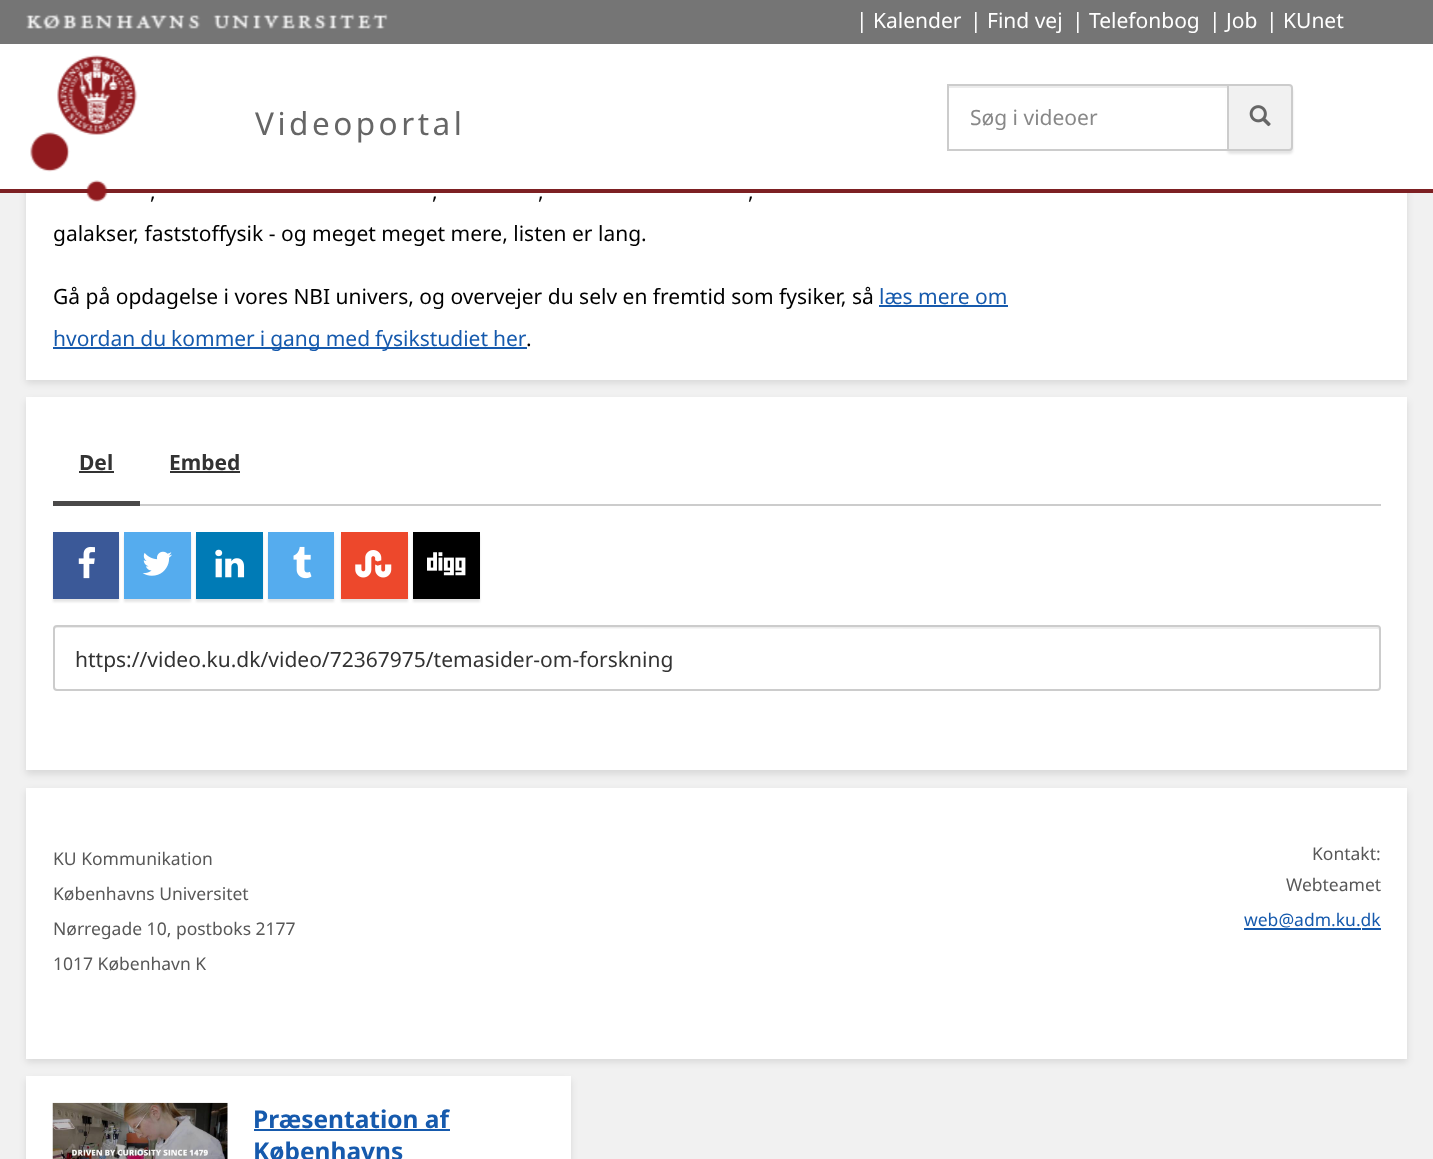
<!DOCTYPE html>
<meta charset="utf-8">
<style>body { margin: 0 } canvas { display: block }</style>
<canvas id="canvas" width="1433" height="1159"></canvas>
<script type="module">
  const canvas = document.getElementById("canvas");
  const ctx = canvas.getContext("2d");
  ctx.miterLimit = 4;
  ctx.fontKerning = "normal";
  async function loadImage(src) {
    const img = new Image();
    img.src = src;
    await img.decode();
    return img;
  }

  ctx.fillStyle = "#f1f1f1";
  ctx.fillRect(0, 0, 1433, 1159);
  ctx.fillStyle = "rgba(0, 0, 0, 0.1)";
  ctx.filter = "blur(3.5px)";
  ctx.beginPath();
  ctx.rect(26, -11, 1381, 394);
  ctx.fill();
  ctx.filter = "none";
  ctx.fillStyle = "#ffffff";
  ctx.fillRect(0, 44, 1433, 145);
  ctx.fillStyle = "#7d2023";
  ctx.fillRect(0, 189, 1433, 4);
  ctx.fillStyle = "#757575";
  ctx.fillRect(0, 0, 1433, 44);
  ctx.drawImage(await loadImage("img1.png"), 26, 14, 362, 16);
  ctx.font = "21px Noto Sans";
  ctx.fillStyle = "#ffffff";
  ctx.fillText("| Kalender", 856, 28);
  ctx.fillText("| Find vej", 970, 28);
  ctx.fillText("| Telefonbog", 1072, 28);
  ctx.fillText("| Job", 1209, 28);
  ctx.fillText("| KUnet", 1266, 28);
  ctx.fillRect(26, 193, 1381, 187);
  ctx.drawImage(await loadImage("img2.png"), 30, 55, 108, 147);
  ctx.letterSpacing = "3.5px";
  ctx.font = "31.5px Noto Sans";
  ctx.fillStyle = "#666666";
  ctx.fillText("Videoportal", 255, 135);
  ctx.fillStyle = "rgba(0, 0, 0, 0.1)";
  ctx.filter = "blur(1px)";
  ctx.beginPath();
  ctx.roundRect(1227, 88, 66, 66, 4);
  ctx.fill();
  ctx.filter = "none";
  ctx.fillStyle = "#ffffff";
  ctx.fillRect(1226, 89, 1, 60);
  ctx.fillStyle = "#ececec";
  ctx.fillRect(949, 86, 278, 2);
  ctx.fillStyle = "#f1f1f1";
  ctx.beginPath();
  ctx.roundRect(1228, 85, 64, 65, [0, 3, 3, 0]);
  ctx.fill();
  ctx.strokeStyle = "#cccccc";
  ctx.lineWidth = 2;
  ctx.stroke();
  ctx.strokeRect(948, 85, 280, 65);
  ctx.letterSpacing = "0px";
  ctx.font = "21px Noto Sans";
  ctx.fillStyle = "#888888";
  ctx.fillText("Søg i videoer", 970, 125);
  ctx.drawImage(await loadImage("img3.png"), 1249, 105, 22, 22);
  ctx.fillStyle = "#000000";
  ctx.fillText(",", 150, 199);
  ctx.fillText(",", 432, 199);
  ctx.fillText(",", 538, 199);
  ctx.fillText(",", 748, 199);
  ctx.fillText("galakser, faststoffysik - og meget meget mere, listen er lang.", 53, 241);
  ctx.fillText("Gå på opdagelse i vores NBI univers, og overvejer du selv en fremtid som fysiker, så", 53, 304);
  ctx.fillStyle = "#165aad";
  ctx.fillText("læs mere om", 879, 304);
  ctx.fillRect(879, 305, 129, 2);
  ctx.fillRect(53, 347, 474, 2);
  ctx.wordSpacing = "-0.5px";
  ctx.fillText("hvordan du kommer i gang med fysikstudiet her", 53, 346);
  ctx.wordSpacing = "0px";
  ctx.fillStyle = "#000000";
  ctx.fillText(".", 526, 346);
  ctx.fillStyle = "rgba(0, 0, 0, 0.1)";
  ctx.filter = "blur(3.5px)";
  ctx.beginPath();
  ctx.rect(26, 401, 1381, 373);
  ctx.fill();
  ctx.filter = "none";
  ctx.fillStyle = "#ffffff";
  ctx.fillRect(26, 397, 1381, 373);
  ctx.fillStyle = "#cccccc";
  ctx.fillRect(140, 504, 1241, 2);
  ctx.fillStyle = "#4a4949";
  ctx.fillRect(53, 501, 87, 5);
  ctx.font = "bold 21px Noto Sans";
  ctx.fillStyle = "#333333";
  ctx.fillText("Del", 79, 470);
  ctx.fillRect(79, 471, 35, 2);
  ctx.fillText("Embed", 169, 470);
  ctx.fillRect(170, 471, 70, 2);
  ctx.fillStyle = "rgba(0, 0, 0, 0.1)";
  ctx.filter = "blur(1px)";
  ctx.beginPath();
  ctx.rect(53, 536, 66, 66);
  ctx.fill();
  ctx.filter = "none";
  ctx.fillStyle = "#3b5998";
  ctx.fillRect(53, 532, 66, 67);
  ctx.drawImage(await loadImage("img4.png"), 78, 546, 17, 33);
  ctx.fillStyle = "rgba(0, 0, 0, 0.1)";
  ctx.filter = "blur(1px)";
  ctx.beginPath();
  ctx.rect(124, 536, 67, 66);
  ctx.fill();
  ctx.filter = "none";
  ctx.fillStyle = "#55acee";
  ctx.fillRect(124, 532, 67, 67);
  ctx.drawImage(await loadImage("img5.png"), 142, 551, 30, 25);
  ctx.fillStyle = "rgba(0, 0, 0, 0.1)";
  ctx.filter = "blur(1px)";
  ctx.beginPath();
  ctx.rect(196, 536, 67, 66);
  ctx.fill();
  ctx.filter = "none";
  ctx.fillStyle = "#007bb6";
  ctx.fillRect(196, 532, 67, 67);
  ctx.drawImage(await loadImage("img6.png"), 215, 549, 30, 29);
  ctx.fillStyle = "rgba(0, 0, 0, 0.1)";
  ctx.filter = "blur(1px)";
  ctx.beginPath();
  ctx.rect(268, 536, 66, 66);
  ctx.fill();
  ctx.filter = "none";
  ctx.fillStyle = "#55acee";
  ctx.fillRect(268, 532, 66, 67);
  ctx.drawImage(await loadImage("img7.png"), 293, 546, 19, 33);
  ctx.fillStyle = "rgba(0, 0, 0, 0.1)";
  ctx.filter = "blur(1px)";
  ctx.beginPath();
  ctx.rect(341, 536, 67, 66);
  ctx.fill();
  ctx.filter = "none";
  ctx.fillStyle = "#ed482c";
  ctx.fillRect(341, 532, 67, 67);
  ctx.drawImage(await loadImage("img8.png"), 355, 550, 37, 28);
  ctx.fillStyle = "rgba(0, 0, 0, 0.1)";
  ctx.filter = "blur(1px)";
  ctx.beginPath();
  ctx.rect(413, 536, 67, 66);
  ctx.fill();
  ctx.filter = "none";
  ctx.fillStyle = "#000000";
  ctx.fillRect(413, 532, 67, 67);
  ctx.drawImage(await loadImage("img9.png"), 427, 552, 39, 24);
  ctx.fillStyle = "#ececec";
  ctx.beginPath();
  ctx.moveTo(56, 628);
  ctx.lineTo(1378, 629);
  ctx.lineTo(1379, 630);
  ctx.lineTo(1379, 629);
  ctx.bezierCurveTo(1379, 628, 1378, 627, 1377, 627);
  ctx.lineTo(56, 627);
  ctx.bezierCurveTo(55, 627, 54, 628, 54, 629);
  ctx.closePath();
  ctx.fill();
  ctx.beginPath();
  ctx.roundRect(54, 626, 1326, 64, 3);
  ctx.stroke();
  ctx.font = "21px Noto Sans";
  ctx.fillStyle = "#333333";
  ctx.fillText("https://video.ku.dk/video/72367975/temasider-om-forskning", 75, 667);
  ctx.fillStyle = "rgba(0, 0, 0, 0.1)";
  ctx.filter = "blur(3.5px)";
  ctx.beginPath();
  ctx.rect(26, 791, 1381, 271);
  ctx.fill();
  ctx.filter = "none";
  ctx.fillStyle = "#ffffff";
  ctx.fillRect(26, 788, 1381, 271);
  ctx.font = "17.5px Noto Sans";
  ctx.fillStyle = "#585858";
  ctx.fillText("KU Kommunikation", 53, 865);
  ctx.fillText("Københavns Universitet", 53, 900);
  ctx.fillText("Nørregade 10, postboks 2177", 53, 935);
  ctx.fillText("1017 København K", 53, 970);
  ctx.fillText("Kontakt:", 1312, 860);
  ctx.fillText("Webteamet", 1286, 891);
  ctx.fillStyle = "#165aad";
  ctx.fillText("web@adm.ku.dk", 1244, 926);
  ctx.fillRect(1244, 928, 117, 2);
  ctx.fillRect(1362, 928, 19, 2);
  ctx.fillStyle = "rgba(0, 0, 0, 0.1)";
  ctx.filter = "blur(3.5px)";
  ctx.beginPath();
  ctx.rect(26, 1080, 545, 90);
  ctx.fill();
  ctx.filter = "none";
  ctx.fillStyle = "#ffffff";
  ctx.fillRect(26, 1076, 545, 83);
  ctx.drawImage(await loadImage("img10.png"), 52, 1102, 176, 57);
  ctx.font = "bold 24.5px Noto Sans";
  ctx.fillStyle = "#165aad";
  ctx.fillText("Præsentation af", 253, 1128);
  ctx.fillRect(254, 1129, 196, 2);
  ctx.fillText("Københavns", 253, 1160);
</script>
